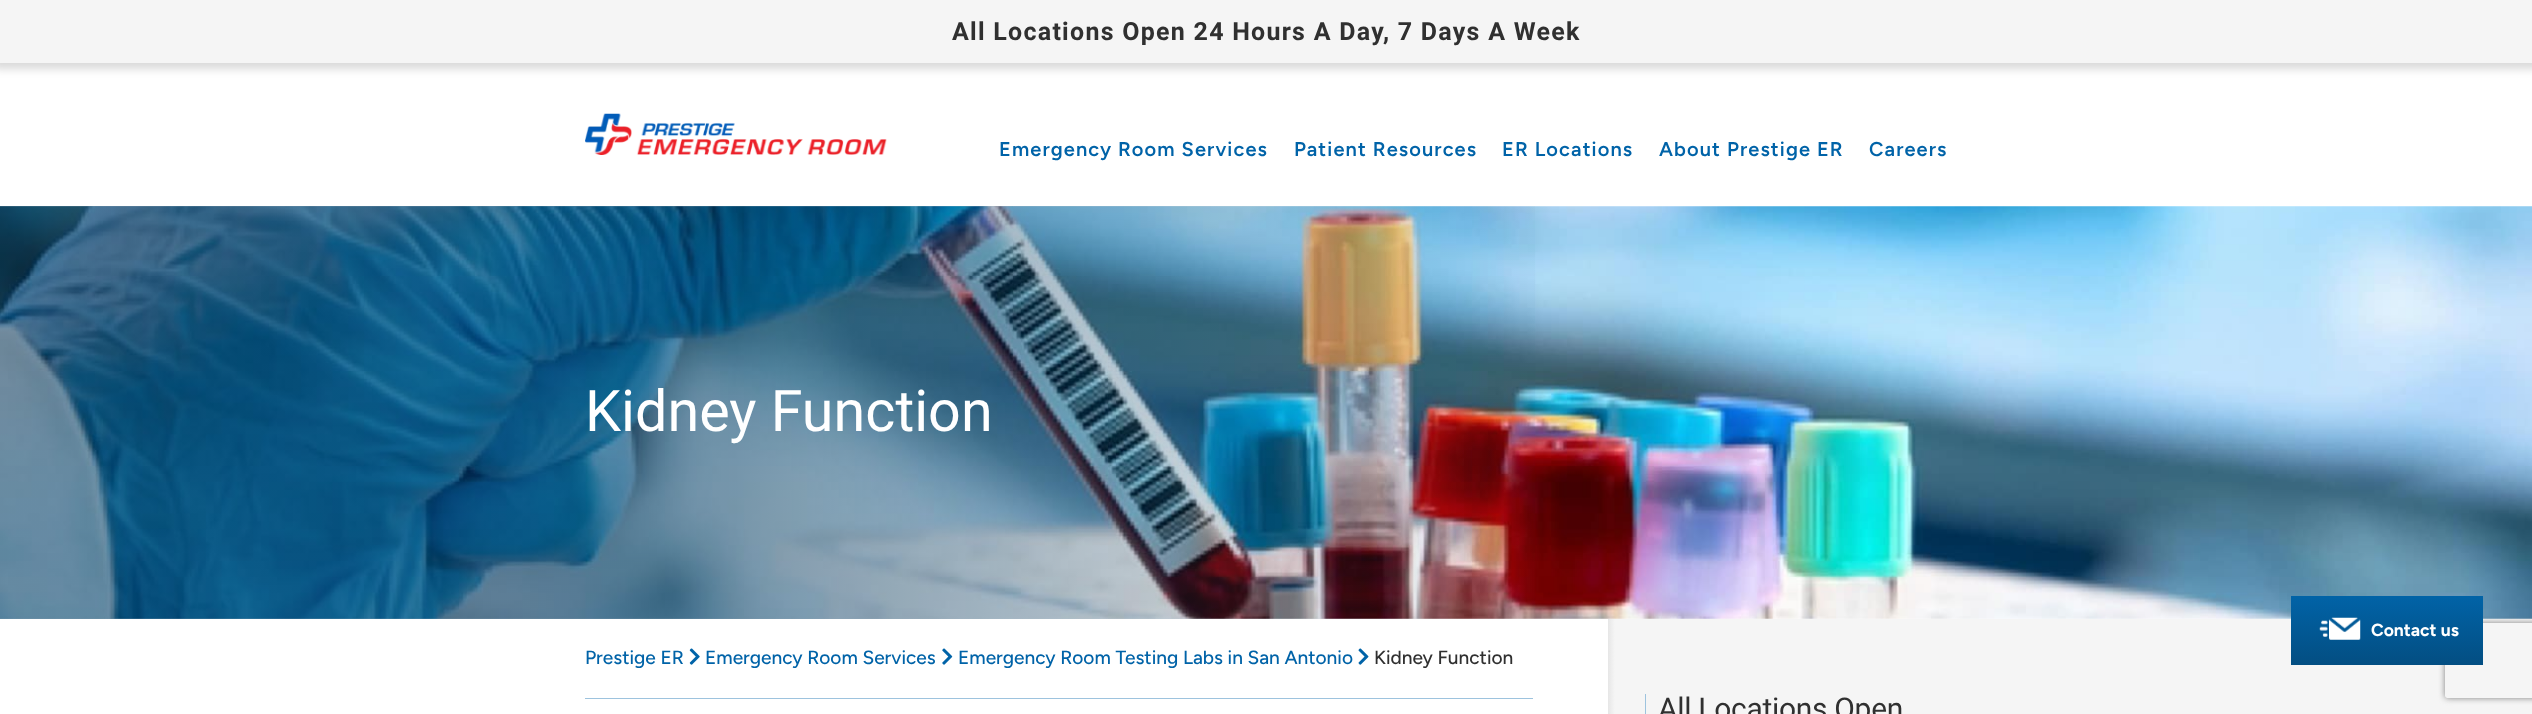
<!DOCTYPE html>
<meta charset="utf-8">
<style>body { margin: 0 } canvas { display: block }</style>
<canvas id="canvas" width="2532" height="714"></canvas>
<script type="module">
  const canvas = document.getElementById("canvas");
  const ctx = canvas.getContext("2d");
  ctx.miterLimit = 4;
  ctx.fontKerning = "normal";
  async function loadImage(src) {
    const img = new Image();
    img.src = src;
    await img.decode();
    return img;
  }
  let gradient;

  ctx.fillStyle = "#ffffff";
  ctx.fillRect(0, 0, 2532, 714);
  ctx.fillStyle = "rgba(0, 0, 0, 0.15)";
  ctx.filter = "blur(4.5px)";
  ctx.beginPath();
  ctx.rect(-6, -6, 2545, 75);
  ctx.fill();
  ctx.filter = "none";
  ctx.fillStyle = "#f5f5f5";
  ctx.fillRect(0, 0, 2532, 63);
  ctx.letterSpacing = "1.25px";
  ctx.font = "bold 25px Roboto";
  ctx.fillStyle = "#303030";
  ctx.fillText("All Locations Open 24 Hours A Day, 7 Days A Week", 952, 40);
  ctx.drawImage(await loadImage("img1.png"), 585, 113, 302, 42);
  ctx.letterSpacing = "1.1px";
  ctx.font = "600 20px Figtree";
  ctx.fillStyle = "#0063a8";
  ctx.fillText("Emergency Room Services", 999, 156);
  ctx.fillText("Patient Resources", 1294, 156);
  ctx.fillText("ER Locations", 1502, 156);
  ctx.fillText("About Prestige ER", 1659, 156);
  ctx.fillText("Careers", 1869, 156);
  ctx.drawImage(await loadImage("img2.png"), 0, 206, 2532, 413);
  gradient = ctx.createLinearGradient(0, 413, 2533, 412);
  gradient.addColorStop(0.29, "rgba(0, 54, 91, 0.5)");
  gradient.addColorStop(0.62, "rgba(0, 54, 91, 0)");
  ctx.fillStyle = gradient;
  ctx.fillRect(0, 206, 1535, 413);
  ctx.letterSpacing = "0px";
  ctx.font = "57.5px Roboto";
  ctx.fillStyle = "#ffffff";
  ctx.fillText("Kidney Function", 585, 431);
  ctx.fillStyle = "#f5f5f5";
  ctx.fillRect(1948, 619, 584, 95);
  ctx.save();
  ctx.beginPath();
  ctx.moveTo(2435, 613);
  ctx.lineTo(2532, 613);
  ctx.lineTo(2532, 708);
  ctx.lineTo(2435, 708);
  ctx.closePath();
  ctx.moveTo(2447.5, 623);
  ctx.lineTo(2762.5, 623);
  ctx.bezierCurveTo(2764, 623, 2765, 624, 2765, 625.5);
  ctx.lineTo(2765, 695.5);
  ctx.bezierCurveTo(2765, 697, 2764, 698, 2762.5, 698);
  ctx.lineTo(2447.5, 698);
  ctx.bezierCurveTo(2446, 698, 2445, 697, 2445, 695.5);
  ctx.lineTo(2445, 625.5);
  ctx.bezierCurveTo(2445, 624, 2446, 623, 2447.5, 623);
  ctx.closePath();
  ctx.clip("evenodd");
  ctx.fillStyle = "#808080";
  ctx.filter = "blur(3px)";
  ctx.beginPath();
  ctx.roundRect(2445, 623, 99, 75, 2.5);
  ctx.fill();
  ctx.filter = "none";
  ctx.restore();
  gradient = ctx.createLinearGradient(2387, 596, 2387, 665);
  gradient.addColorStop(0, "#0163a7");
  gradient.addColorStop(1, "#034e82");
  ctx.fillStyle = gradient;
  ctx.fillRect(2291, 596, 192, 69);
  ctx.drawImage(await loadImage("img3.png"), 2319, 617, 42, 23);
  ctx.font = "bold 17.5px Figtree";
  ctx.fillStyle = "#ffffff";
  ctx.fillText("Contact us", 2371, 636);
  ctx.fillStyle = "#9dc3de";
  ctx.fillRect(585, 698, 948, 1);
  ctx.font = "500 19.1px Figtree";
  ctx.fillStyle = "#0063a8";
  ctx.fillText("Prestige ER", 585, 664);
  ctx.drawImage(await loadImage("img4.png"), 689, 648, 11, 17);
  ctx.fillText("Emergency Room Services", 705, 664);
  ctx.drawImage(await loadImage("img5.png"), 942, 648, 11, 17);
  ctx.fillText("Emergency Room Testing Labs in San Antonio", 958, 664);
  ctx.drawImage(await loadImage("img6.png"), 1358, 648, 11, 17);
  ctx.fillStyle = "#303030";
  ctx.fillText("Kidney Function", 1374, 664);
  gradient = ctx.createLinearGradient(1608, 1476, 1948, 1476);
  gradient.addColorStop(0, "#e6e6e6");
  gradient.addColorStop(0.02, "#f5f5f5");
  ctx.fillStyle = gradient;
  ctx.fillRect(1608, 619, 340, 95);
  ctx.fillStyle = "#9dc3de";
  ctx.fillRect(1645, 694, 1, 20);
  ctx.letterSpacing = "-0.3px";
  ctx.font = "30px Roboto";
  ctx.fillStyle = "#303030";
  ctx.fillText("All Locations Open", 1658, 719);
</script>
